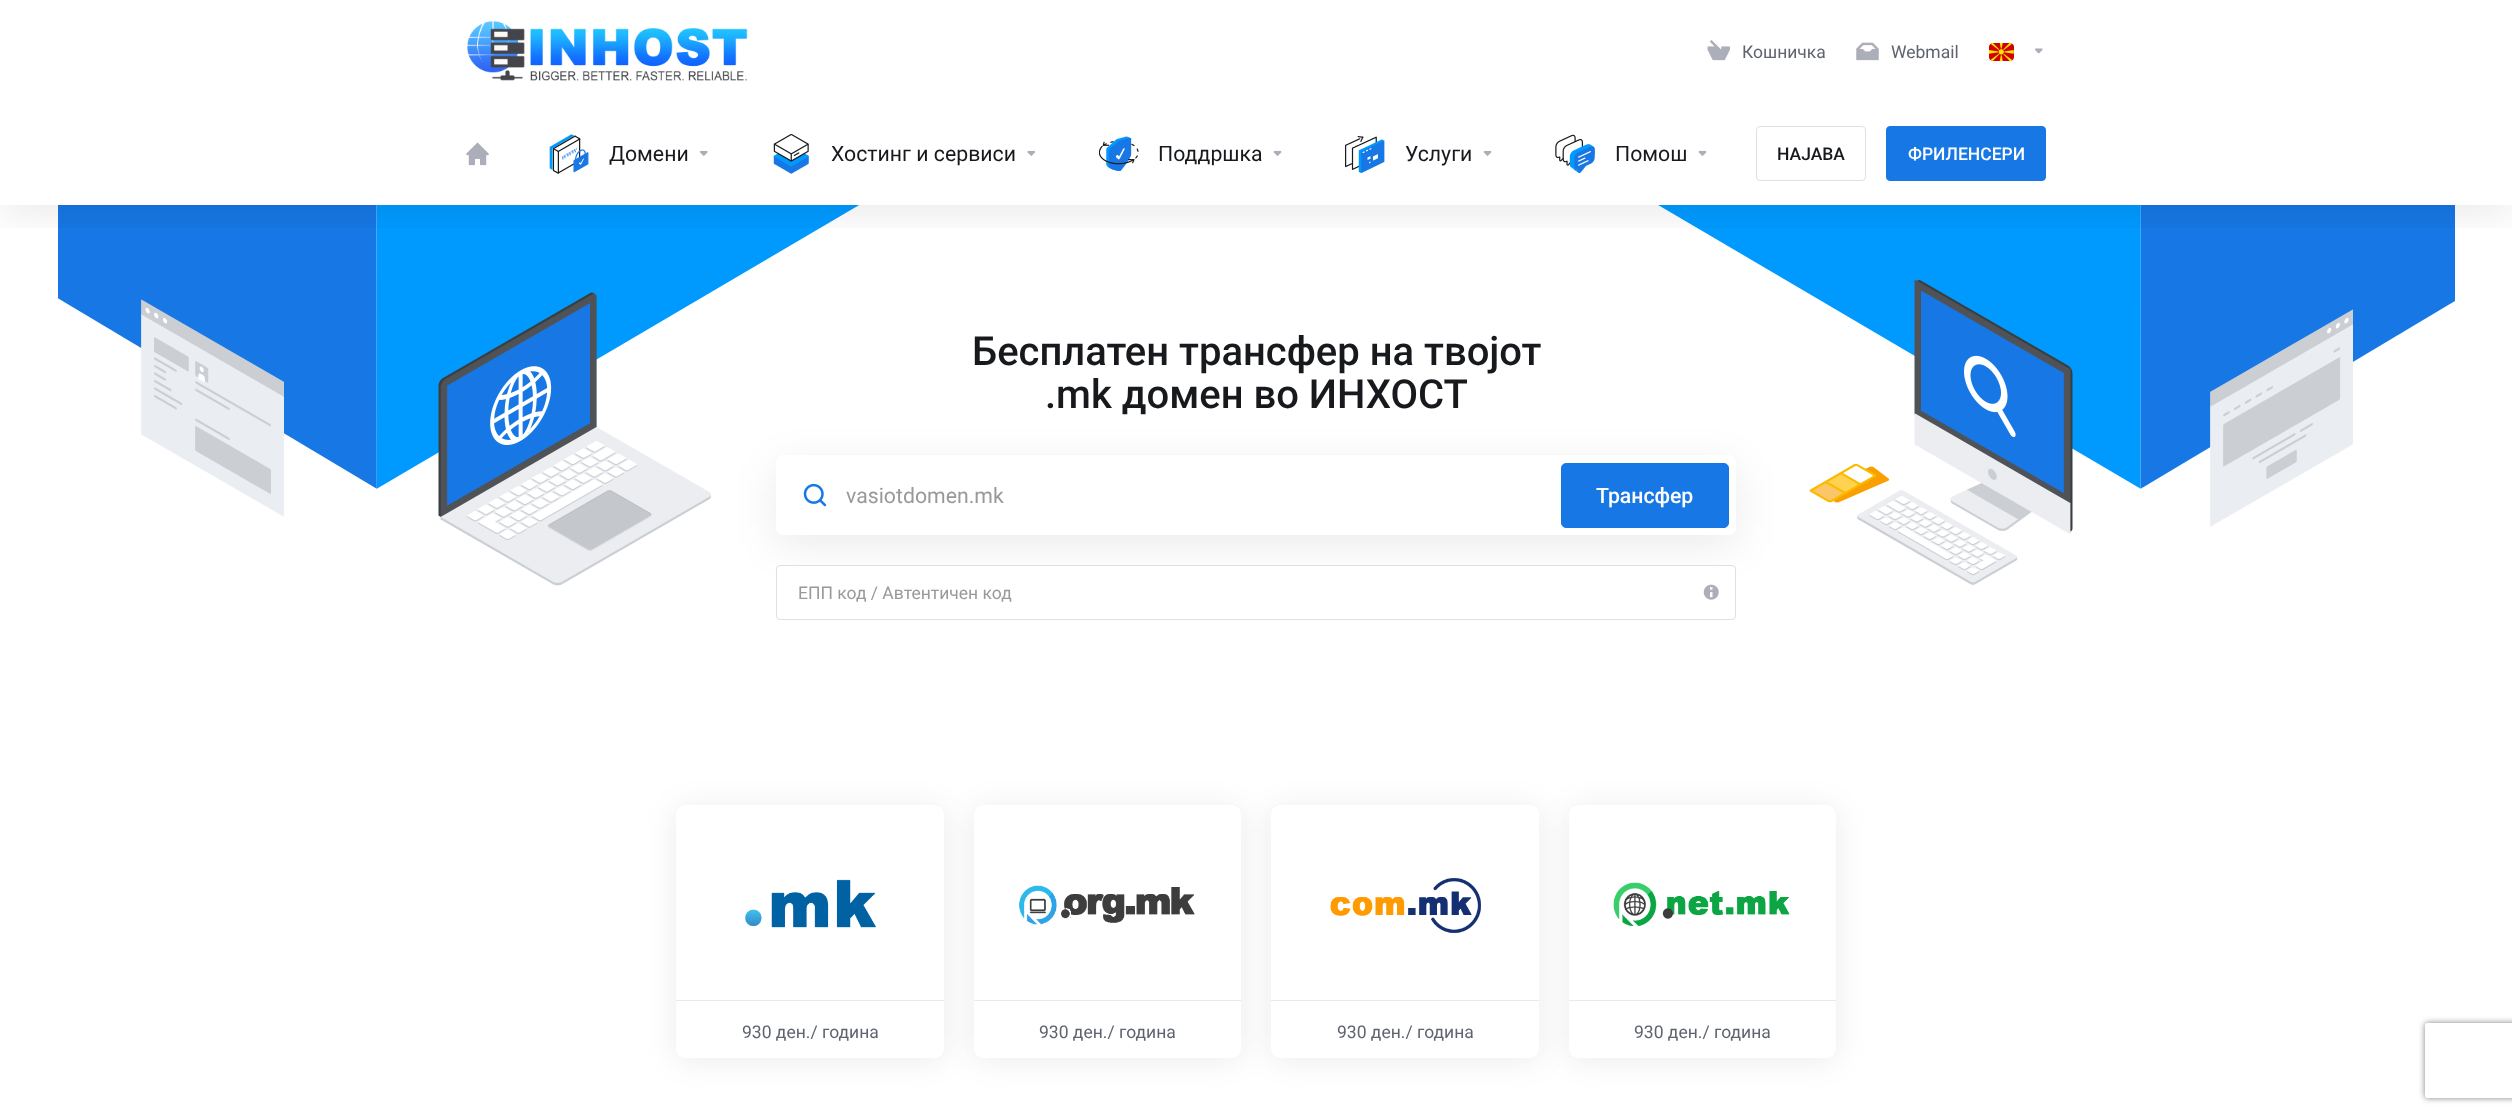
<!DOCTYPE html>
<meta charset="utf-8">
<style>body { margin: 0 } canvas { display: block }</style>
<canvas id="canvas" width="2512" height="1115"></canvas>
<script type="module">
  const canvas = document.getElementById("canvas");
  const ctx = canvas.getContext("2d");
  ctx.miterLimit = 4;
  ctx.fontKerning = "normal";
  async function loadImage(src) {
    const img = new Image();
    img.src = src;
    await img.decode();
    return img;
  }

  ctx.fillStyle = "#ffffff";
  ctx.fillRect(0, 0, 2512, 1115);
  ctx.drawImage(await loadImage("img15.png"), 58, 205, 2397, 381);
  ctx.save();
  ctx.beginPath();
  ctx.rect(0, 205, 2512, 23);
  ctx.clip();
  ctx.fillStyle = "rgba(0, 0, 0, 0.08)";
  ctx.filter = "blur(20px)";
  ctx.beginPath();
  ctx.rect(0, 10, 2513, 205);
  ctx.fill();
  ctx.filter = "none";
  ctx.restore();
  ctx.drawImage(await loadImage("img1.png"), 467, 21, 281, 60);
  ctx.drawImage(await loadImage("img2.png"), 1707, 40, 23, 21);
  ctx.font = "17.5px Roboto";
  ctx.fillStyle = "#5e636e";
  ctx.fillText("Кошничка", 1742, 58);
  ctx.drawImage(await loadImage("img3.png"), 1856, 42, 23, 19);
  ctx.fillText("Webmail", 1891, 58);
  ctx.drawImage(await loadImage("img4.png"), 1989, 43, 25, 18);
  ctx.drawImage(await loadImage("img5.png"), 2035, 48, 8, 6);
  ctx.drawImage(await loadImage("img6.png"), 466, 142, 23, 24);
  ctx.drawImage(await loadImage("img7.png"), 549, 134, 40, 40);
  ctx.font = "21.25px Roboto";
  ctx.fillStyle = "#17191c";
  ctx.fillText("Домени", 609, 161);
  ctx.drawImage(await loadImage("img8.png"), 700, 150, 8, 6);
  ctx.drawImage(await loadImage("img9.png"), 773, 134, 36, 40);
  ctx.fillText("Хостинг и сервиси", 831, 161);
  ctx.drawImage(await loadImage("img10.png"), 1027, 150, 8, 6);
  ctx.drawImage(await loadImage("img11.png"), 1099, 136, 40, 35);
  ctx.fillText("Поддршка", 1158, 161);
  ctx.drawImage(await loadImage("img12.png"), 1273, 150, 9, 6);
  ctx.drawImage(await loadImage("img13.png"), 1345, 136, 40, 38);
  ctx.fillText("Услуги", 1405, 161);
  ctx.drawImage(await loadImage("img12.png"), 1483, 150, 9, 6);
  ctx.drawImage(await loadImage("img14.png"), 1555, 134, 40, 39);
  ctx.fillText("Помош", 1615, 161);
  ctx.drawImage(await loadImage("img12.png"), 1698, 150, 9, 6);
  ctx.beginPath();
  ctx.roundRect(1756.5, 126.5, 109, 54, 3.5);
  ctx.strokeStyle = "#dee0e3";
  ctx.stroke();
  ctx.font = "500 17.5px Roboto";
  ctx.fillText("НАЈАВА", 1777, 160);
  ctx.fillStyle = "#1777e5";
  ctx.beginPath();
  ctx.roundRect(1886.5, 126.5, 159, 54, 3.5);
  ctx.fill();
  ctx.strokeStyle = "#1777e5";
  ctx.stroke();
  ctx.fillStyle = "#ffffff";
  ctx.fillText("ФРИЛЕНСЕРИ", 1908, 160);
  ctx.font = "500 40px Roboto";
  ctx.fillStyle = "#17191c";
  ctx.fillText("Бесплатен трансфер на твојот", 972, 365);
  ctx.fillStyle = "rgba(0, 0, 0, 0.08)";
  ctx.filter = "blur(20px)";
  ctx.beginPath();
  ctx.roundRect(776, 465, 960, 80, 5);
  ctx.fill();
  ctx.filter = "none";
  ctx.fillStyle = "#17191c";
  ctx.fillText(".mk домен во ИНХОСТ", 1045, 408);
  ctx.fillStyle = "rgba(0, 0, 0, 0.12)";
  ctx.filter = "blur(0.5px)";
  ctx.beginPath();
  ctx.roundRect(776, 455, 960, 80, 5);
  ctx.fill();
  ctx.filter = "none";
  ctx.fillStyle = "#ffffff";
  ctx.beginPath();
  ctx.roundRect(776, 455, 960, 80, 5);
  ctx.fill();
  ctx.drawImage(await loadImage("img16.png"), 803, 483, 24, 24);
  ctx.font = "21.25px Roboto";
  ctx.fillStyle = "#999999";
  ctx.fillText("vasiotdomen.mk", 846, 503);
  ctx.fillStyle = "#1777e5";
  ctx.beginPath();
  ctx.roundRect(1561.5, 463.5, 167, 64, 4.5);
  ctx.fill();
  ctx.stroke();
  ctx.font = "500 21.25px Roboto";
  ctx.fillStyle = "#ffffff";
  ctx.fillText("Трансфер", 1596, 503);
  ctx.beginPath();
  ctx.roundRect(778, 566, 957, 53, 2.5);
  ctx.fill();
  ctx.beginPath();
  ctx.roundRect(776.5, 565.5, 959, 54, 3.5);
  ctx.strokeStyle = "#dee0e3";
  ctx.stroke();
  ctx.font = "17.5px Roboto";
  ctx.fillStyle = "#999999";
  ctx.fillText("ЕПП код / Автентичен код", 798, 599);
  ctx.drawImage(await loadImage("img17.png"), 1703, 584, 16, 16);
  ctx.save();
  ctx.beginPath();
  ctx.moveTo(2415, 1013);
  ctx.lineTo(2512, 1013);
  ctx.lineTo(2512, 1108);
  ctx.lineTo(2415, 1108);
  ctx.closePath();
  ctx.moveTo(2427.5, 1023);
  ctx.lineTo(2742.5, 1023);
  ctx.bezierCurveTo(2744, 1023, 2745, 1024, 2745, 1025.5);
  ctx.lineTo(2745, 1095.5);
  ctx.bezierCurveTo(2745, 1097, 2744, 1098, 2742.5, 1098);
  ctx.lineTo(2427.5, 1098);
  ctx.bezierCurveTo(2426, 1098, 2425, 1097, 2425, 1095.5);
  ctx.lineTo(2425, 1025.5);
  ctx.bezierCurveTo(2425, 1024, 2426, 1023, 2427.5, 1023);
  ctx.closePath();
  ctx.clip("evenodd");
  ctx.fillStyle = "#808080";
  ctx.filter = "blur(3px)";
  ctx.beginPath();
  ctx.roundRect(2425, 1023, 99, 75, 2.5);
  ctx.fill();
  ctx.filter = "none";
  ctx.restore();
  ctx.fillStyle = "rgba(0, 0, 0, 0.08)";
  ctx.filter = "blur(15px)";
  ctx.beginPath();
  ctx.roundRect(676, 808, 268, 252, 8);
  ctx.fill();
  ctx.filter = "none";
  ctx.fillStyle = "rgba(0, 0, 0, 0.1)";
  ctx.filter = "blur(0.5px)";
  ctx.beginPath();
  ctx.roundRect(676, 805, 268, 253, 8);
  ctx.fill();
  ctx.filter = "none";
  ctx.fillStyle = "#ffffff";
  ctx.beginPath();
  ctx.roundRect(676, 805, 268, 253, 8);
  ctx.fill();
  ctx.drawImage(await loadImage("img18.png"), 745, 879, 131, 49);
  ctx.fillStyle = "#e9eaec";
  ctx.fillRect(676, 1000, 268, 1);
  ctx.fillStyle = "#5e636e";
  ctx.fillText("930 ден./ година", 742, 1038);
  ctx.fillStyle = "rgba(0, 0, 0, 0.08)";
  ctx.filter = "blur(15px)";
  ctx.beginPath();
  ctx.roundRect(974, 808, 267, 252, 8);
  ctx.fill();
  ctx.filter = "none";
  ctx.fillStyle = "rgba(0, 0, 0, 0.1)";
  ctx.filter = "blur(0.5px)";
  ctx.beginPath();
  ctx.roundRect(974, 805, 267, 253, 8);
  ctx.fill();
  ctx.filter = "none";
  ctx.fillStyle = "#ffffff";
  ctx.beginPath();
  ctx.roundRect(974, 805, 267, 253, 8);
  ctx.fill();
  ctx.drawImage(await loadImage("img19.png"), 1019, 885, 176, 40);
  ctx.fillStyle = "#e9eaec";
  ctx.fillRect(974, 1000, 267, 1);
  ctx.fillStyle = "#5e636e";
  ctx.fillText("930 ден./ година", 1039, 1038);
  ctx.fillStyle = "rgba(0, 0, 0, 0.08)";
  ctx.filter = "blur(15px)";
  ctx.beginPath();
  ctx.roundRect(1271, 808, 268, 252, 8);
  ctx.fill();
  ctx.filter = "none";
  ctx.fillStyle = "rgba(0, 0, 0, 0.1)";
  ctx.filter = "blur(0.5px)";
  ctx.beginPath();
  ctx.roundRect(1271, 805, 268, 253, 8);
  ctx.fill();
  ctx.filter = "none";
  ctx.fillStyle = "#ffffff";
  ctx.beginPath();
  ctx.roundRect(1271, 805, 268, 253, 8);
  ctx.fill();
  ctx.drawImage(await loadImage("img20.png"), 1330, 878, 151, 56);
  ctx.fillStyle = "#e9eaec";
  ctx.fillRect(1271, 1000, 268, 1);
  ctx.fillStyle = "#5e636e";
  ctx.fillText("930 ден./ година", 1337, 1038);
  ctx.fillStyle = "rgba(0, 0, 0, 0.08)";
  ctx.filter = "blur(15px)";
  ctx.beginPath();
  ctx.roundRect(1569, 808, 267, 252, 8);
  ctx.fill();
  ctx.filter = "none";
  ctx.fillStyle = "rgba(0, 0, 0, 0.1)";
  ctx.filter = "blur(0.5px)";
  ctx.beginPath();
  ctx.roundRect(1569, 805, 267, 253, 8);
  ctx.fill();
  ctx.filter = "none";
  ctx.fillStyle = "#ffffff";
  ctx.beginPath();
  ctx.roundRect(1569, 805, 267, 253, 8);
  ctx.fill();
  ctx.drawImage(await loadImage("img21.png"), 1613, 882, 178, 44);
  ctx.fillStyle = "#e9eaec";
  ctx.fillRect(1569, 1000, 267, 1);
  ctx.fillStyle = "#5e636e";
  ctx.fillText("930 ден./ година", 1634, 1038);
</script>
